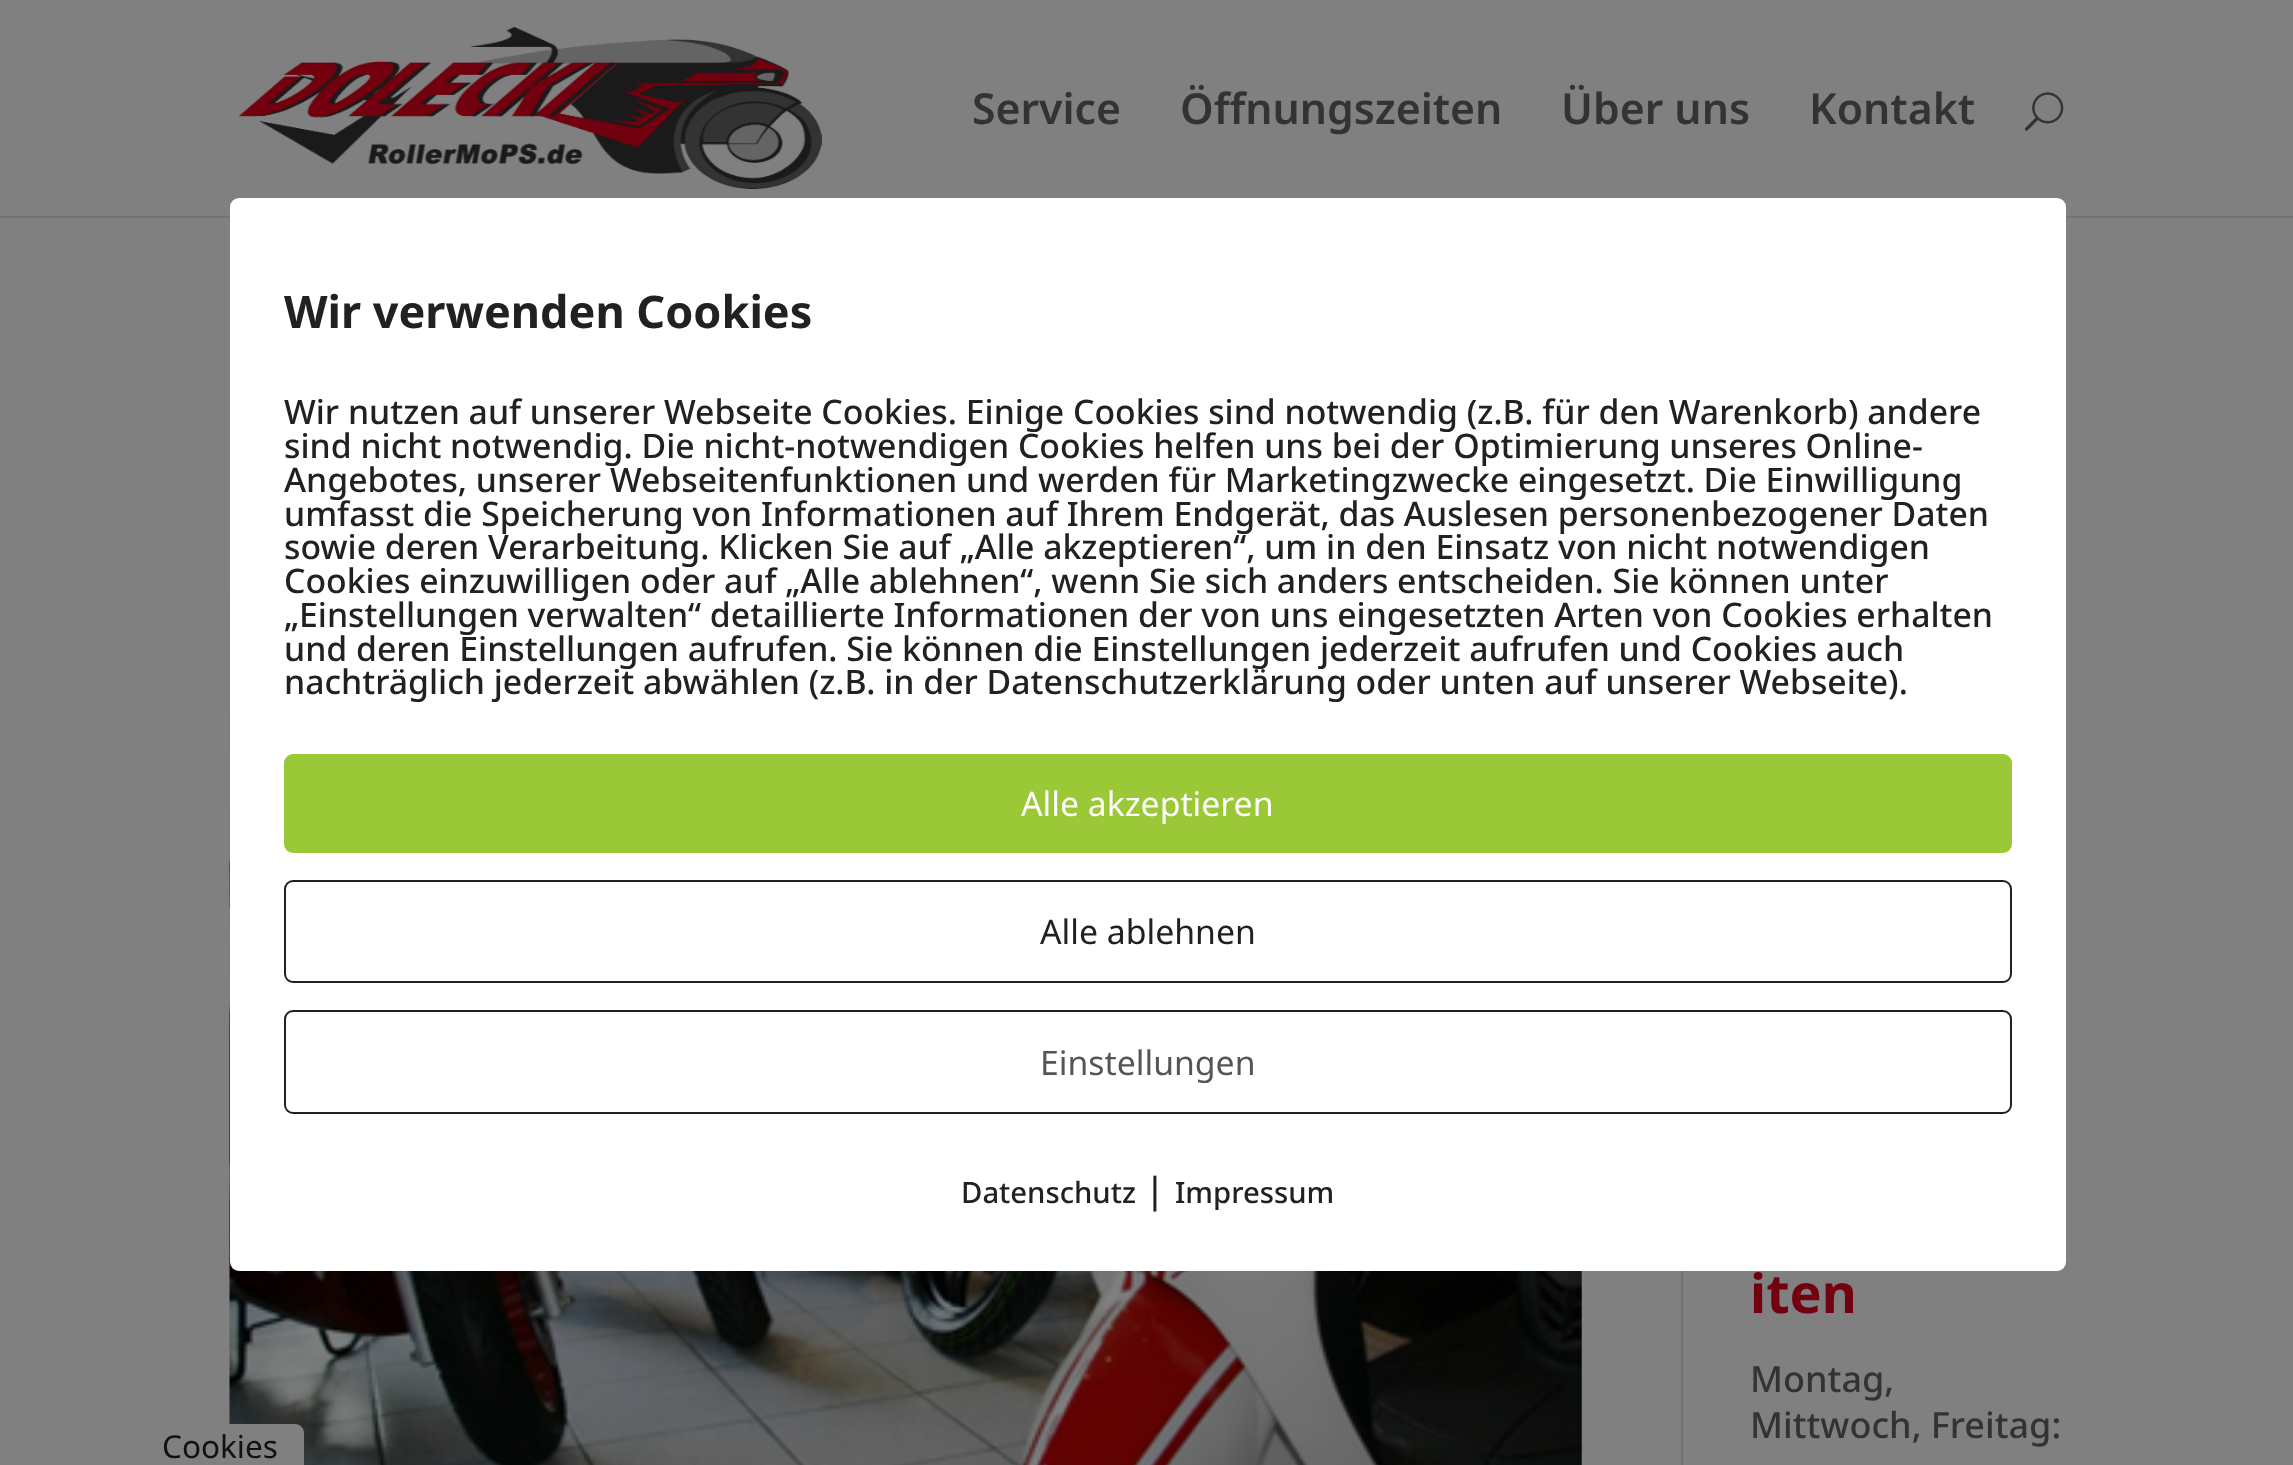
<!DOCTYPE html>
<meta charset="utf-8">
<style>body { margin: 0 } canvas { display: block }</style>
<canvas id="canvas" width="2293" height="1465"></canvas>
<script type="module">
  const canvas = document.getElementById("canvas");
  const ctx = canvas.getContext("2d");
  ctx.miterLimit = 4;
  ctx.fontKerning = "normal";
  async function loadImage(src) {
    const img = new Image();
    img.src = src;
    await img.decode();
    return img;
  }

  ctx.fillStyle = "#808080";
  ctx.fillRect(0, 0, 2293, 1465);
  ctx.fillStyle = "#737373";
  ctx.fillRect(0, 216, 2293, 2);
  ctx.drawImage(await loadImage("img1.png"), 239, 27, 583, 162);
  ctx.font = "600 42.75px Noto Sans";
  ctx.fillStyle = "#333333";
  ctx.fillText("Service", 972, 124);
  ctx.fillText("Öffnungszeiten", 1180, 124);
  ctx.fillText("Über uns", 1561, 124);
  ctx.fillText("Kontakt", 1809, 124);
  ctx.drawImage(await loadImage("img2.png"), 2024, 92, 40, 39);
  ctx.fillStyle = "#717171";
  ctx.fillRect(1681, 1271, 2, 194);
  ctx.drawImage(await loadImage("img3.png"), 229, 598, 1353, 867);
  ctx.font = "bold 54px Noto Sans";
  ctx.fillStyle = "#72000e";
  ctx.fillText("iten", 1750, 1313);
  ctx.font = "500 36px Noto Sans";
  ctx.fillStyle = "#333333";
  ctx.fillText("Montag,", 1750, 1392);
  ctx.fillText("Mittwoch, Freitag:", 1750, 1438);
  ctx.fillStyle = "#ffffff";
  ctx.beginPath();
  ctx.roundRect(230, 198, 1836, 1073, 9);
  ctx.fill();
  ctx.font = "bold 45px Noto Sans";
  ctx.fillStyle = "#212121";
  ctx.fillText("Wir verwenden Cookies", 284, 328);
  ctx.font = "500 33.75px Noto Sans";
  ctx.fillText("Wir nutzen auf unserer Webseite Cookies. Einige Cookies sind notwendig (z.B. für den Warenkorb) andere", 284, 424);
  ctx.fillText("sind nicht notwendig. Die nicht-notwendigen Cookies helfen uns bei der Optimierung unseres Online-", 284, 458);
  ctx.fillText("Angebotes, unserer Webseitenfunktionen und werden für Marketingzwecke eingesetzt. Die Einwilligung", 284, 492);
  ctx.fillText("umfasst die Speicherung von Informationen auf Ihrem Endgerät, das Auslesen personenbezogener Daten", 284, 526);
  ctx.fillText("sowie deren Verarbeitung. Klicken Sie auf „Alle akzeptieren“, um in den Einsatz von nicht notwendigen", 284, 559);
  ctx.fillText("Cookies einzuwilligen oder auf „Alle ablehnen“, wenn Sie sich anders entscheiden. Sie können unter", 284, 593);
  ctx.fillText("„Einstellungen verwalten“ detaillierte Informationen der von uns eingesetzten Arten von Cookies erhalten", 284, 627);
  ctx.fillText("und deren Einstellungen aufrufen. Sie können die Einstellungen jederzeit aufrufen und Cookies auch", 284, 661);
  ctx.fillText("nachträglich jederzeit abwählen (z.B. in der Datenschutzerklärung oder unten auf unserer Webseite).", 284, 694);
  ctx.fillStyle = "#9ac836";
  ctx.beginPath();
  ctx.roundRect(284, 754, 1728, 99, 9);
  ctx.fill();
  ctx.font = "33.75px Noto Sans";
  ctx.fillStyle = "#ffffff";
  ctx.fillText("Alle akzeptieren", 1021, 816);
  ctx.beginPath();
  ctx.roundRect(285, 881, 1726, 101, 8);
  ctx.strokeStyle = "#212121";
  ctx.lineWidth = 2;
  ctx.stroke();
  ctx.fillStyle = "#212121";
  ctx.fillText("Alle ablehnen", 1040, 944);
  ctx.beginPath();
  ctx.roundRect(285, 1011, 1726, 102, 8);
  ctx.stroke();
  ctx.fillStyle = "#555555";
  ctx.fillText("Einstellungen", 1040, 1075);
  ctx.font = "500 29.25px Noto Sans";
  ctx.fillStyle = "#212121";
  ctx.fillText("Datenschutz", 961, 1203);
  ctx.font = "500 36px Noto Sans";
  ctx.fillText("|", 1145, 1203);
  ctx.font = "500 29.25px Noto Sans";
  ctx.fillText("Impressum", 1175, 1203);
  ctx.fillStyle = "#808080";
  ctx.beginPath();
  ctx.moveTo(144, 1424);
  ctx.lineTo(295, 1424);
  ctx.bezierCurveTo(300, 1424, 304, 1428, 304, 1433);
  ctx.lineTo(304, 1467);
  ctx.lineTo(135, 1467);
  ctx.lineTo(135, 1433);
  ctx.bezierCurveTo(135, 1428, 139, 1424, 144, 1424);
  ctx.closePath();
  ctx.fill();
  ctx.font = "31.5px Noto Sans";
  ctx.fillStyle = "#111111";
  ctx.fillText("Cookies", 162, 1458);
</script>
